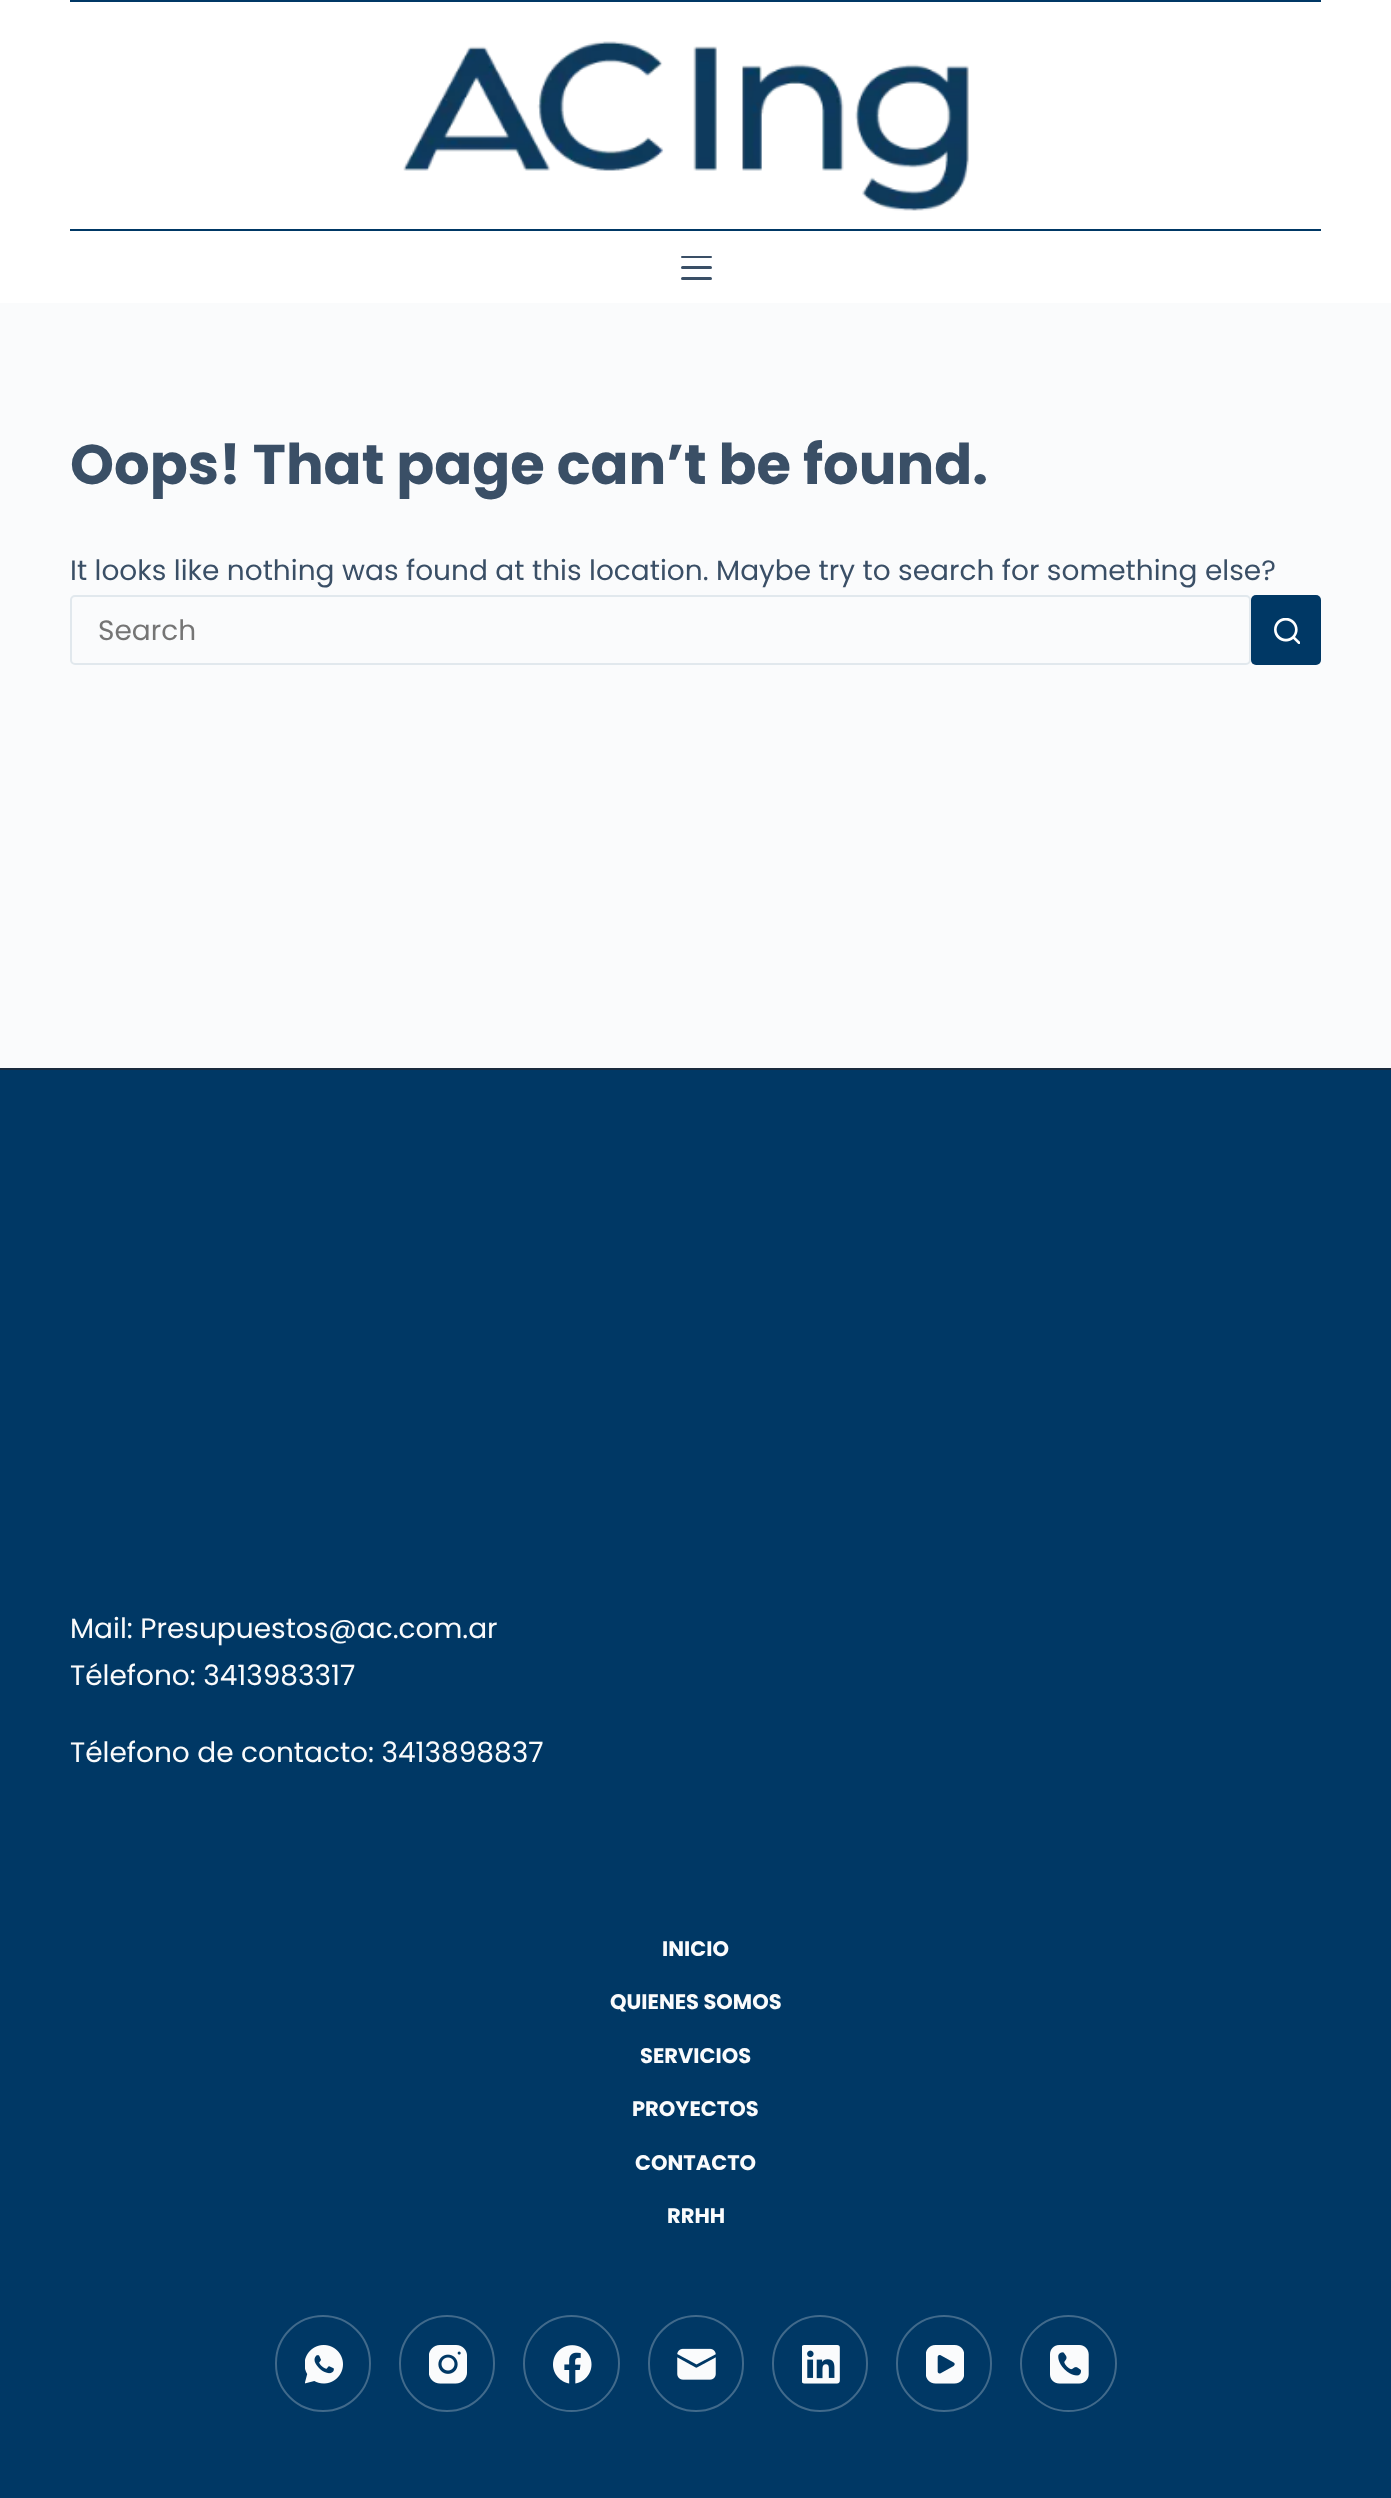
<!DOCTYPE html>
<meta charset="utf-8">
<style>body { margin: 0 } canvas { display: block }</style>
<canvas id="canvas" width="1391" height="2498"></canvas>
<script type="module">
  const canvas = document.getElementById("canvas");
  const ctx = canvas.getContext("2d");
  ctx.miterLimit = 4;
  ctx.fontKerning = "normal";
  async function loadImage(src) {
    const img = new Image();
    img.src = src;
    await img.decode();
    return img;
  }

  ctx.fillStyle = "#fafbfc";
  ctx.fillRect(0, 0, 1391, 2498);
  ctx.fillStyle = "#ffffff";
  ctx.fillRect(0, 0, 1391, 303);
  ctx.fillStyle = "#003865";
  ctx.fillRect(70, 229, 1251, 2);
  ctx.fillStyle = "#3a4f66";
  ctx.beginPath();
  ctx.roundRect(681, 256, 31, 2, 1);
  ctx.fill();
  ctx.beginPath();
  ctx.roundRect(681, 266, 31, 3, 1.5);
  ctx.fill();
  ctx.beginPath();
  ctx.roundRect(681, 277, 31, 3, 1.5);
  ctx.fill();
  ctx.fillStyle = "#003865";
  ctx.fillRect(70, 0, 1251, 2);
  ctx.drawImage(await loadImage("img1.png"), 403, 41, 566, 170);
  ctx.font = "bold 56px Poppins";
  ctx.fillStyle = "#3a4f66";
  ctx.fillText("Oops! That page can’t be found.", 70, 484);
  ctx.font = "28px Poppins";
  ctx.fillText("It looks like nothing was found at this location. Maybe try to search for something else?", 70, 580);
  ctx.beginPath();
  ctx.roundRect(71, 596, 1179, 68, 4);
  ctx.strokeStyle = "#e1e8ed";
  ctx.lineWidth = 2;
  ctx.stroke();
  ctx.fillStyle = "#757575";
  ctx.fillText("Search", 98, 640);
  ctx.fillStyle = "#003865";
  ctx.beginPath();
  ctx.roundRect(1251, 595, 70, 70, 5);
  ctx.fill();
  ctx.drawImage(await loadImage("img2.png"), 1274, 618, 26, 26);
  ctx.fillRect(0, 1070, 1391, 1428);
  ctx.fillStyle = "#192a3d";
  ctx.fillRect(0, 1068, 1391, 2);
  ctx.fillStyle = "#fafbfc";
  ctx.fillText("Mail: Presupuestos@ac.com.ar", 70, 1638);
  ctx.fillText("Télefono: 3413983317", 70, 1685);
  ctx.fillText("Télefono de contacto: 3413898837", 70, 1762);
  ctx.font = "bold 21px Poppins";
  ctx.fillText("INICIO", 662, 1956);
  ctx.fillText("QUIENES SOMOS", 610, 2009);
  ctx.fillText("SERVICIOS", 640, 2063);
  ctx.fillText("PROYECTOS", 632, 2116);
  ctx.fillText("CONTACTO", 635, 2170);
  ctx.fillText("RRHH", 667, 2223);
  ctx.beginPath();
  ctx.roundRect(276, 2316, 94, 95, 47);
  ctx.strokeStyle = "#416a8b";
  ctx.stroke();
  ctx.drawImage(await loadImage("img3.png"), 305, 2345, 38, 39);
  ctx.beginPath();
  ctx.roundRect(400, 2316, 94, 95, 47);
  ctx.stroke();
  ctx.drawImage(await loadImage("img4.png"), 429, 2345, 38, 39);
  ctx.beginPath();
  ctx.arc(571.5, 2363.5, 47.5, 0, Math.PI * 2);
  ctx.stroke();
  ctx.drawImage(await loadImage("img5.png"), 553, 2345, 39, 39);
  ctx.beginPath();
  ctx.roundRect(649, 2316, 94, 95, 47);
  ctx.stroke();
  ctx.drawImage(await loadImage("img6.png"), 677, 2348, 39, 32);
  ctx.beginPath();
  ctx.roundRect(773, 2316, 94, 95, 47);
  ctx.stroke();
  ctx.drawImage(await loadImage("img7.png"), 802, 2345, 38, 39);
  ctx.beginPath();
  ctx.roundRect(897, 2316, 94, 95, 47);
  ctx.stroke();
  ctx.drawImage(await loadImage("img8.png"), 926, 2345, 38, 39);
  ctx.beginPath();
  ctx.arc(1068.5, 2363.5, 47.5, 0, Math.PI * 2);
  ctx.stroke();
  ctx.drawImage(await loadImage("img9.png"), 1050, 2345, 39, 39);
</script>
